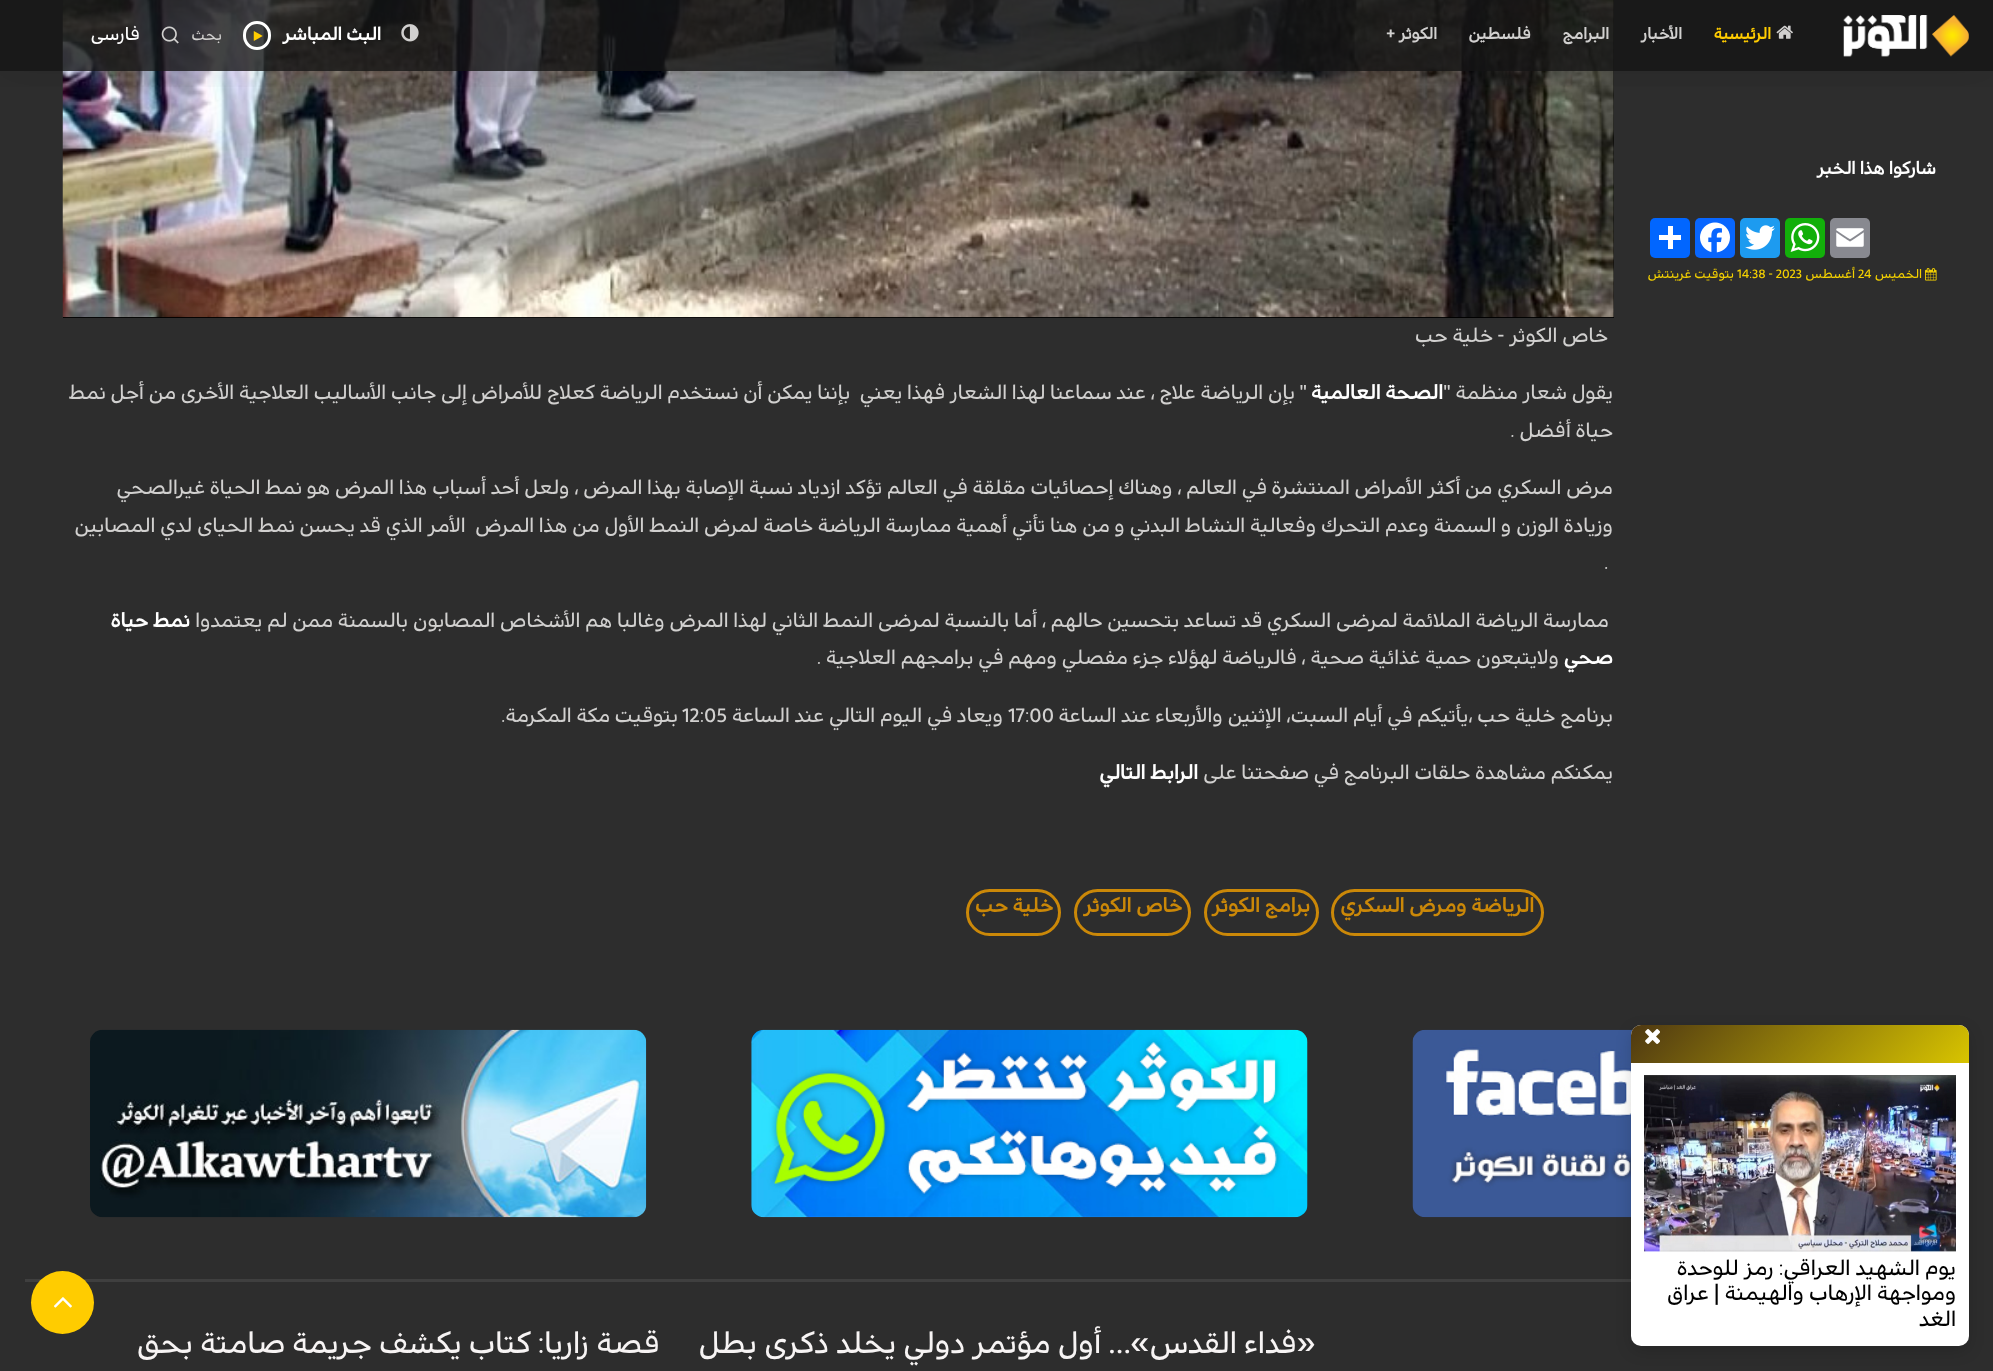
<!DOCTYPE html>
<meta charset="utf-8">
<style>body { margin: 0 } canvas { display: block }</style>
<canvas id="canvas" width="1993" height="1371"></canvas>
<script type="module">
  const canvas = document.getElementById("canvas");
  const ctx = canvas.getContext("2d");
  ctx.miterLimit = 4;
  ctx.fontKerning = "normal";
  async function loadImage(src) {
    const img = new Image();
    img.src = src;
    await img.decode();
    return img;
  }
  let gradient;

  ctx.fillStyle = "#2d2d2d";
  ctx.fillRect(0, 0, 1993, 1371);
  ctx.fillStyle = "#000000";
  ctx.fillRect(63, 0, 1551, 318);
  ctx.drawImage(await loadImage("img11.png"), 62, 0, 1552, 318);
  ctx.save();
  ctx.beginPath();
  ctx.rect(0, 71, 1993, 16);
  ctx.clip();
  ctx.fillStyle = "rgba(0, 0, 0, 0.1)";
  ctx.filter = "blur(19px)";
  ctx.beginPath();
  ctx.rect(0, 0, 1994, 71);
  ctx.fill();
  ctx.filter = "none";
  ctx.restore();
  ctx.fillStyle = "rgba(20, 20, 20, 0.8)";
  ctx.fillRect(0, 0, 1993, 71);
  ctx.drawImage(await loadImage("img1.png"), 1843, 15, 126, 42);
  ctx.drawImage(await loadImage("img2.png"), 1776, 25, 17, 14);
  ctx.direction = "rtl";
  ctx.font = "bold 16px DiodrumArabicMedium";
  ctx.fillStyle = "#ffcc00";
  ctx.fillText("الرئيسية", 1771, 39);
  ctx.fillStyle = "#d1d0cf";
  ctx.fillText("الأخبار", 1682, 39);
  ctx.fillText("البرامج", 1609, 39);
  ctx.fillText("فلسطين", 1531, 39);
  ctx.fillText("الكوثر +", 1437, 39);
  ctx.drawImage(await loadImage("img3.png"), 401, 24, 18, 18);
  ctx.font = "bold 18px DiodrumArabicMedium";
  ctx.fillStyle = "#ffffff";
  ctx.fillText("البث المباشر", 381, 40);
  ctx.beginPath();
  ctx.roundRect(244.5, 22.5, 25, 26, 12.5);
  ctx.strokeStyle = "#ffffff";
  ctx.lineWidth = 3;
  ctx.stroke();
  ctx.drawImage(await loadImage("img4.png"), 253, 31, 10, 10);
  ctx.font = "500 15px DiodrumArabicMedium";
  ctx.fillStyle = "#d1d0cf";
  ctx.fillText("بحث", 222, 40);
  ctx.drawImage(await loadImage("img5.png"), 161, 26, 18, 18);
  ctx.font = "500 18px DiodrumArabicMedium";
  ctx.fillStyle = "#ffffff";
  ctx.fillText("فارسی", 140, 40);
  ctx.font = "bold 17.5px DiodrumArabicMedium";
  ctx.fillText("شاركوا هذا الخبر", 1936, 174);
  ctx.fillStyle = "#888990";
  ctx.beginPath();
  ctx.roundRect(1830, 218, 40, 40, 5);
  ctx.fill();
  ctx.drawImage(await loadImage("img6.png"), 1836, 228, 28, 19);
  ctx.fillStyle = "#12af0a";
  ctx.beginPath();
  ctx.roundRect(1785, 218, 40, 40, 5);
  ctx.fill();
  ctx.drawImage(await loadImage("img7.png"), 1790, 223, 30, 29);
  ctx.fillStyle = "#1d9bf0";
  ctx.beginPath();
  ctx.roundRect(1740, 218, 40, 40, 5);
  ctx.fill();
  ctx.drawImage(await loadImage("img8.png"), 1745, 225, 30, 25);
  ctx.fillStyle = "#0866ff";
  ctx.beginPath();
  ctx.roundRect(1695, 218, 40, 40, 5);
  ctx.fill();
  ctx.drawImage(await loadImage("img9.png"), 1700, 222, 30, 31);
  ctx.fillStyle = "#0166ff";
  ctx.beginPath();
  ctx.roundRect(1650, 218, 40, 40, 5);
  ctx.fill();
  ctx.fillStyle = "#ffffff";
  ctx.fillRect(1668, 226, 5, 23);
  ctx.fillRect(1659, 235, 22, 5);
  ctx.drawImage(await loadImage("img10.png"), 1925, 268, 12, 13);
  ctx.font = "500 12.5px DiodrumArabicMedium";
  ctx.fillStyle = "#f3d000";
  ctx.fillText("الخميس", 1922, 278);
  ctx.direction = "ltr";
  ctx.fillText("24", 1858, 278);
  ctx.direction = "rtl";
  ctx.fillText("أغسطس", 1855, 278);
  ctx.direction = "ltr";
  ctx.fillText("14:38 - 2023", 1737, 278);
  ctx.direction = "rtl";
  ctx.fillText("بتوقيت غرينتش", 1734, 278);
  ctx.font = "500 20px DiodrumArabicMedium";
  ctx.fillStyle = "#d1d0cf";
  ctx.fillText("خاص الكوثر - خلية حب", 1608, 342);
  ctx.fillText("يقول شعار منظمة \"", 1613, 399);
  ctx.font = "bold 20px DiodrumArabicMedium";
  ctx.fillStyle = "#ffffff";
  ctx.fillText("الصحة العالمية", 1443, 399);
  ctx.font = "500 20px DiodrumArabicMedium";
  ctx.fillStyle = "#d1d0cf";
  ctx.fillText("\" بإن الرياضة علاج ، عند سماعنا لهذا الشعار فهذا يعني  بإننا يمكن أن نستخدم الرياضة كعلاج للأمراض إلى جانب الأساليب العلاجية الأخرى من أجل نمط", 1307, 399);
  ctx.fillText("حياة أفضل .", 1613, 437);
  ctx.fillText("مرض السكري من أكثر الأمراض المنتشرة في العالم ، وهناك إحصائيات مقلقة في العالم تؤكد ازدياد نسبة الإصابة بهذا المرض ، ولعل أحد أسباب هذا المرض هو نمط الحياة غيرالصحي", 1613, 494);
  ctx.fillText("وزيادة الوزن و السمنة وعدم التحرك وفعالية النشاط البدني و من هنا تأتي أهمية ممارسة الرياضة خاصة لمرض النمط الأول من هذا المرض  الأمر الذي قد يحسن نمط الحياى لدي المصابين", 1613, 532);
  ctx.direction = "ltr";
  ctx.fillText(".", 1604, 569);
  ctx.direction = "rtl";
  ctx.fillText("ممارسة الرياضة الملائمة لمرضى السكري قد تساعد بتحسين حالهم ، أما بالنسبة لمرضى النمط الثاني لهذا المرض وغالبا هم الأشخاص المصابون بالسمنة ممن لم يعتمدوا", 1609, 627);
  ctx.font = "bold 20px DiodrumArabicMedium";
  ctx.fillStyle = "#ffffff";
  ctx.fillText("نمط حياة", 190, 627);
  ctx.fillText("صحي", 1613, 664);
  ctx.font = "500 20px DiodrumArabicMedium";
  ctx.fillStyle = "#d1d0cf";
  ctx.fillText("ولايتبعون حمية غذائية صحية ، فالرياضة لهؤلاء جزء مفصلي ومهم في برامجهم العلاجية .", 1559, 664);
  ctx.fillText("برنامج خلية حب ،يأتيكم في أيام السبت، الإثنين والأربعاء عند الساعة", 1613, 722);
  ctx.direction = "ltr";
  ctx.fillText("17:00", 1008, 722);
  ctx.direction = "rtl";
  ctx.fillText("ویعاد في الیوم التالي عند الساعة", 1003, 722);
  ctx.direction = "ltr";
  ctx.fillText("12:05", 682, 722);
  ctx.direction = "rtl";
  ctx.fillText("بتوقیت مكة المکرمة.", 678, 722);
  ctx.fillText("يمكنكم مشاهدة حلقات البرنامج في صفحتنا علی", 1613, 779);
  ctx.font = "bold 20px DiodrumArabicMedium";
  ctx.fillStyle = "#ffffff";
  ctx.fillText("الرابط التالي", 1198, 779);
  ctx.beginPath();
  ctx.roundRect(1332.5, 890.5, 210, 44, 22);
  ctx.strokeStyle = "#cb8808";
  ctx.stroke();
  ctx.fillStyle = "#cb8808";
  ctx.fillText("الرياضة ومرض السكري", 1534, 912);
  ctx.beginPath();
  ctx.roundRect(1205.5, 890.5, 112, 44, 22);
  ctx.stroke();
  ctx.fillText("برامج الكوثر", 1310, 912);
  ctx.beginPath();
  ctx.roundRect(1075.5, 890.5, 114, 44, 22);
  ctx.stroke();
  ctx.fillText("خاص الكوثر", 1182, 912);
  ctx.beginPath();
  ctx.roundRect(967.5, 890.5, 92, 44, 22);
  ctx.stroke();
  ctx.fillText("خلية حب", 1053, 912);
  ctx.drawImage(await loadImage("img12.png"), 1412, 1029, 221, 189);
  ctx.drawImage(await loadImage("img13.png"), 751, 1029, 557, 189);
  ctx.drawImage(await loadImage("img14.png"), 90, 1029, 557, 189);
  ctx.fillStyle = "#3f3f3f";
  ctx.fillRect(25, 1279, 1606, 3);
  ctx.font = "500 30px DiodrumArabicMedium";
  ctx.fillStyle = "#f7f4f4";
  ctx.fillText("«فداء القدس»… أول مؤتمر دولي يخلد ذكرى بطل", 1315, 1353);
  ctx.fillText("قصة زاريا: كتاب يكشف جريمة صامتة بحق", 660, 1353);
  ctx.fillStyle = "rgba(0, 0, 0, 0.15)";
  ctx.filter = "blur(7.5px)";
  ctx.beginPath();
  ctx.roundRect(1631, 1030, 338, 321, 10);
  ctx.fill();
  ctx.filter = "none";
  ctx.fillStyle = "#ffffff";
  ctx.beginPath();
  ctx.roundRect(1631, 1025, 338, 321, 10);
  ctx.fill();
  gradient = ctx.createLinearGradient(1706, 950, 1894, 1138);
  gradient.addColorStop(0, "#4e3812");
  gradient.addColorStop(1, "#d8c400");
  ctx.fillStyle = gradient;
  ctx.beginPath();
  ctx.roundRect(1631, 1025, 338, 38, [10, 10, 0, 0]);
  ctx.fill();
  ctx.drawImage(await loadImage("img15.png"), 1645, 1029, 15, 15);
  ctx.drawImage(await loadImage("img16.png"), 1644, 1075, 312, 177);
  ctx.font = "500 21.25px DiodrumArabicMedium";
  ctx.fillStyle = "#000000";
  ctx.fillText("يوم الشهيد العراقي: رمز للوحدة", 1956, 1275);
  ctx.fillText("ومواجهة الإرهاب والهيمنة | عراق", 1956, 1300);
  ctx.fillText("الغد", 1956, 1326);
  ctx.fillStyle = "#ffcc00";
  ctx.beginPath();
  ctx.arc(62.5, 1302.5, 31.5, 0, Math.PI * 2);
  ctx.fill();
  ctx.drawImage(await loadImage("img17.png"), 54, 1297, 18, 11);
</script>
